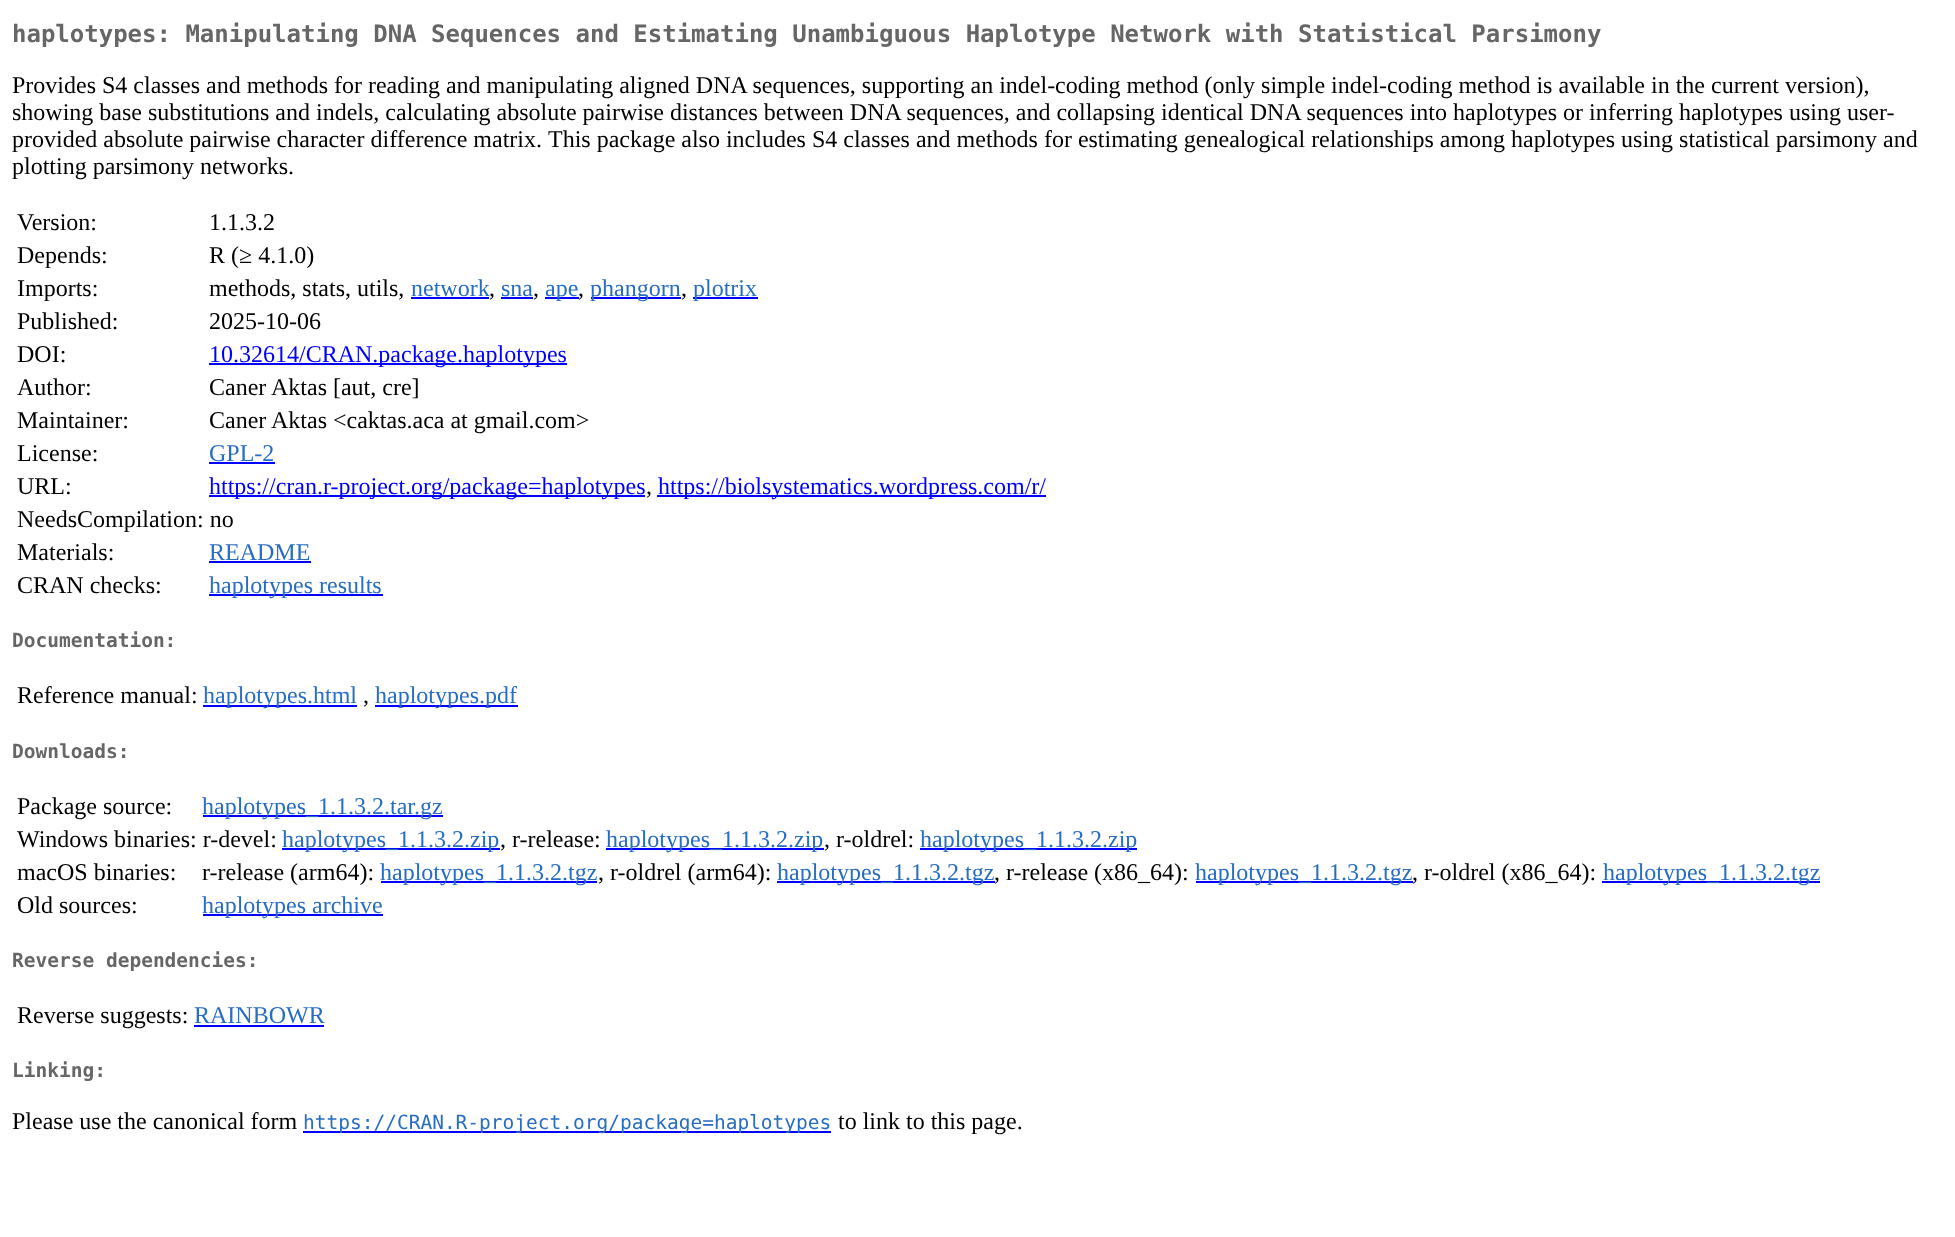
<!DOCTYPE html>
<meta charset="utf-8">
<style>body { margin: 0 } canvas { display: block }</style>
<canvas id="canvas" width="1955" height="1237"></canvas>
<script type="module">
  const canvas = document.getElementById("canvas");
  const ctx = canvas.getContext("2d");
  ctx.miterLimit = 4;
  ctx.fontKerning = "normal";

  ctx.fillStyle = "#ffffff";
  ctx.fillRect(0, 0, 1955, 1237);
  ctx.font = "bold 24px DejaVu Sans Mono";
  ctx.fillStyle = "#666666";
  ctx.fillText("haplotypes: Manipulating DNA Sequences and Estimating Unambiguous Haplotype Network with Statistical Parsimony", 12, 42);
  ctx.font = "24px Liberation Serif";
  ctx.fillStyle = "#000000";
  ctx.fillText("Provides S4 classes and methods for reading and manipulating aligned DNA sequences, supporting an indel-coding method (only simple indel-coding method is available in the current version),", 12, 93);
  ctx.fillText("showing base substitutions and indels, calculating absolute pairwise distances between DNA sequences, and collapsing identical DNA sequences into haplotypes or inferring haplotypes using user-", 12, 120);
  ctx.fillText("provided absolute pairwise character difference matrix.", 12, 147);
  ctx.fillText("This package also includes S4 classes and methods for estimating genealogical relationships among haplotypes using statistical parsimony and", 548, 147);
  ctx.fillText("plotting parsimony networks.", 12, 174);
  ctx.fillText("Version:", 17, 230);
  ctx.fillText("1.1.3.2", 209, 230);
  ctx.fillText("Depends:", 17, 263);
  ctx.fillText("R (≥ 4.1.0)", 209, 263);
  ctx.fillText("Imports:", 17, 296);
  ctx.fillText("methods, stats, utils,", 209, 296);
  ctx.fillStyle = "#276dc3";
  ctx.fillText("network", 411, 296);
  ctx.fillStyle = "#0000ff";
  ctx.fillRect(411, 297, 78, 2);
  ctx.fillStyle = "#000000";
  ctx.fillText(",", 489, 296);
  ctx.fillStyle = "#276dc3";
  ctx.fillText("sna", 501, 296);
  ctx.fillStyle = "#0000ff";
  ctx.fillRect(501, 297, 32, 2);
  ctx.fillStyle = "#000000";
  ctx.fillText(",", 533, 296);
  ctx.fillStyle = "#0000ff";
  ctx.fillRect(545, 297, 34, 2);
  ctx.fillStyle = "#276dc3";
  ctx.fillText("ape", 545, 296);
  ctx.fillStyle = "#000000";
  ctx.fillText(",", 578, 296);
  ctx.fillStyle = "#0000ff";
  ctx.fillRect(591, 297, 90, 2);
  ctx.fillStyle = "#276dc3";
  ctx.fillText("phangorn", 590, 296);
  ctx.fillStyle = "#000000";
  ctx.fillText(",", 681, 296);
  ctx.fillStyle = "#0000ff";
  ctx.fillRect(693, 297, 65, 2);
  ctx.fillStyle = "#276dc3";
  ctx.fillText("plotrix", 693, 296);
  ctx.fillStyle = "#000000";
  ctx.fillText("Published:", 17, 329);
  ctx.fillText("2025-10-06", 209, 329);
  ctx.fillText("DOI:", 17, 362);
  ctx.fillStyle = "#0000ff";
  ctx.fillRect(209, 363, 358, 2);
  ctx.fillText("10.32614/CRAN.package.haplotypes", 209, 362);
  ctx.fillStyle = "#000000";
  ctx.fillText("Author:", 17, 395);
  ctx.fillText("Caner Aktas [aut, cre]", 209, 395);
  ctx.fillText("Maintainer:", 17, 428);
  ctx.fillText("Caner Aktas <caktas.aca at gmail.com>", 209, 428);
  ctx.fillText("License:", 17, 461);
  ctx.fillStyle = "#276dc3";
  ctx.fillText("GPL-2", 209, 461);
  ctx.fillStyle = "#0000ff";
  ctx.fillRect(209, 462, 66, 2);
  ctx.fillStyle = "#000000";
  ctx.fillText("URL:", 17, 494);
  ctx.fillStyle = "#0000ff";
  ctx.fillRect(209, 495, 436, 2);
  ctx.fillText("https://cran.r-project.org/package=haplotypes", 209, 494);
  ctx.fillStyle = "#000000";
  ctx.fillText(",", 646, 494);
  ctx.fillStyle = "#0000ff";
  ctx.fillRect(657, 495, 389, 2);
  ctx.fillText("https://biolsystematics.wordpress.com/r/", 658, 494);
  ctx.fillStyle = "#000000";
  ctx.fillText("NeedsCompilation: no", 17, 527);
  ctx.fillText("Materials:", 17, 560);
  ctx.fillStyle = "#276dc3";
  ctx.fillText("README", 209, 560);
  ctx.fillStyle = "#0000ff";
  ctx.fillRect(209, 561, 102, 2);
  ctx.fillStyle = "#000000";
  ctx.fillText("CRAN checks:", 17, 593);
  ctx.fillStyle = "#0000ff";
  ctx.fillRect(209, 594, 174, 2);
  ctx.fillStyle = "#276dc3";
  ctx.fillText("haplotypes results", 209, 593);
  ctx.font = "bold 19.5px DejaVu Sans Mono";
  ctx.fillStyle = "#666666";
  ctx.fillText("Documentation:", 12, 647);
  ctx.font = "24px Liberation Serif";
  ctx.fillStyle = "#000000";
  ctx.fillText("Reference manual:", 17, 703);
  ctx.fillStyle = "#0000ff";
  ctx.fillRect(203, 705, 154, 2);
  ctx.fillStyle = "#276dc3";
  ctx.fillText("haplotypes.html", 203, 703);
  ctx.fillStyle = "#000000";
  ctx.fillText(",", 363, 703);
  ctx.fillStyle = "#0000ff";
  ctx.fillRect(375, 705, 143, 2);
  ctx.fillStyle = "#276dc3";
  ctx.fillText("haplotypes.pdf", 375, 703);
  ctx.font = "bold 19.5px DejaVu Sans Mono";
  ctx.fillStyle = "#666666";
  ctx.fillText("Downloads:", 12, 758);
  ctx.font = "24px Liberation Serif";
  ctx.fillStyle = "#000000";
  ctx.fillText("Package source:", 17, 814);
  ctx.fillStyle = "#0000ff";
  ctx.fillRect(203, 815, 240, 2);
  ctx.fillStyle = "#276dc3";
  ctx.fillText("haplotypes_1.1.3.2.tar.gz", 202, 814);
  ctx.fillStyle = "#000000";
  ctx.fillText("Windows binaries: r-devel:", 17, 847);
  ctx.fillStyle = "#0000ff";
  ctx.fillRect(282, 848, 218, 2);
  ctx.fillStyle = "#276dc3";
  ctx.fillText("haplotypes_1.1.3.2.zip", 282, 847);
  ctx.fillStyle = "#000000";
  ctx.fillText(", r-release:", 500, 847);
  ctx.fillStyle = "#0000ff";
  ctx.fillRect(606, 848, 218, 2);
  ctx.fillStyle = "#276dc3";
  ctx.fillText("haplotypes_1.1.3.2.zip", 606, 847);
  ctx.fillStyle = "#000000";
  ctx.fillText(", r-oldrel:", 824, 847);
  ctx.fillStyle = "#0000ff";
  ctx.fillRect(920, 848, 217, 2);
  ctx.fillStyle = "#276dc3";
  ctx.fillText("haplotypes_1.1.3.2.zip", 920, 847);
  ctx.fillStyle = "#000000";
  ctx.fillText("macOS binaries:", 17, 880);
  ctx.fillText("r-release (arm64):", 202, 880);
  ctx.fillStyle = "#0000ff";
  ctx.fillRect(381, 881, 216, 2);
  ctx.fillStyle = "#276dc3";
  ctx.fillText("haplotypes_1.1.3.2.tgz", 380, 880);
  ctx.fillStyle = "#000000";
  ctx.fillText(", r-oldrel (arm64):", 598, 880);
  ctx.fillStyle = "#0000ff";
  ctx.fillRect(777, 881, 218, 2);
  ctx.fillStyle = "#276dc3";
  ctx.fillText("haplotypes_1.1.3.2.tgz", 777, 880);
  ctx.fillStyle = "#000000";
  ctx.fillText(", r-release (x86_64):", 994, 880);
  ctx.fillStyle = "#0000ff";
  ctx.fillRect(1196, 881, 217, 2);
  ctx.fillStyle = "#276dc3";
  ctx.fillText("haplotypes_1.1.3.2.tgz", 1195, 880);
  ctx.fillStyle = "#000000";
  ctx.fillText(", r-oldrel (x86_64):", 1412, 880);
  ctx.fillStyle = "#0000ff";
  ctx.fillRect(1602, 881, 218, 2);
  ctx.fillStyle = "#276dc3";
  ctx.fillText("haplotypes_1.1.3.2.tgz", 1603, 880);
  ctx.fillStyle = "#000000";
  ctx.fillText("Old sources:", 17, 913);
  ctx.fillStyle = "#0000ff";
  ctx.fillRect(203, 914, 180, 2);
  ctx.fillStyle = "#276dc3";
  ctx.fillText("haplotypes archive", 202, 913);
  ctx.font = "bold 19.5px DejaVu Sans Mono";
  ctx.fillStyle = "#666666";
  ctx.fillText("Reverse dependencies:", 12, 967);
  ctx.font = "24px Liberation Serif";
  ctx.fillStyle = "#000000";
  ctx.fillText("Reverse suggests:", 17, 1023);
  ctx.fillStyle = "#276dc3";
  ctx.fillText("RAINBOWR", 194, 1023);
  ctx.fillStyle = "#0000ff";
  ctx.fillRect(194, 1025, 130, 2);
  ctx.font = "bold 19.5px DejaVu Sans Mono";
  ctx.fillStyle = "#666666";
  ctx.fillText("Linking:", 12, 1077);
  ctx.font = "24px Liberation Serif";
  ctx.fillStyle = "#000000";
  ctx.fillText("Please use the canonical form", 12, 1129);
  ctx.fillStyle = "#0000ff";
  ctx.fillRect(303, 1131, 528, 2);
  ctx.font = "19.5px DejaVu Sans Mono";
  ctx.fillStyle = "#276dc3";
  ctx.fillText("https://CRAN.R-project.org/package=haplotypes", 303, 1129);
  ctx.font = "24px Liberation Serif";
  ctx.fillStyle = "#000000";
  ctx.fillText("to link to this page.", 838, 1129);
</script>
